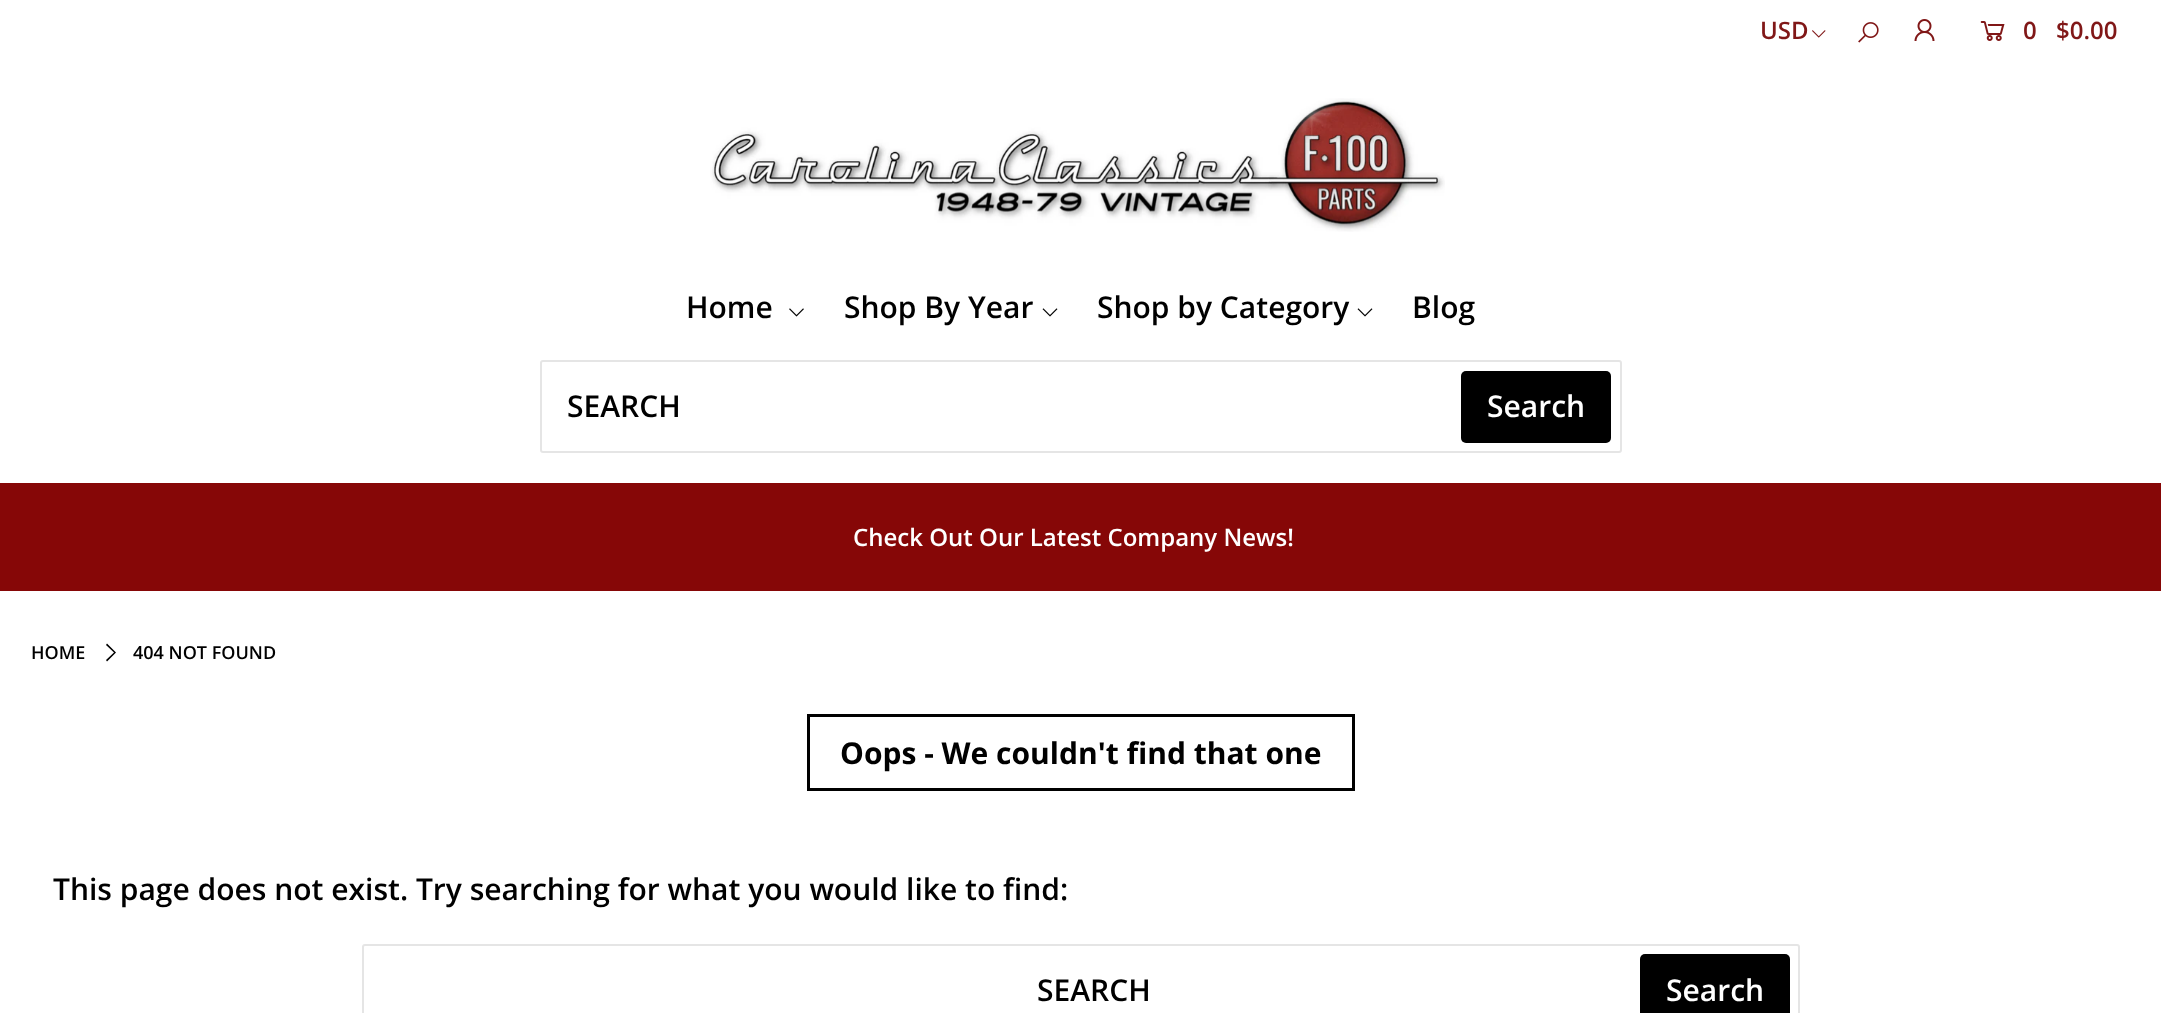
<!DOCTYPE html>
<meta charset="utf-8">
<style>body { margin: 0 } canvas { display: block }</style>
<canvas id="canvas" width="2161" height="1013"></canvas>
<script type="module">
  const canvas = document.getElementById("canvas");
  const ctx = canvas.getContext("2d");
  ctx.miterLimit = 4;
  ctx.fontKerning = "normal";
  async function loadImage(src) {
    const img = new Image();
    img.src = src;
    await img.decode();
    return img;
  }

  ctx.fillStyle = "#ffffff";
  ctx.fillRect(0, 0, 2161, 1013);
  ctx.font = "600 24px Open Sans";
  ctx.fillStyle = "#801717";
  ctx.fillText("USD", 1760, 39);
  ctx.drawImage(await loadImage("img1.png"), 1812, 30, 14, 8);
  ctx.drawImage(await loadImage("img2.png"), 1858, 22, 21, 21);
  ctx.drawImage(await loadImage("img3.png"), 1914, 19, 21, 22);
  ctx.drawImage(await loadImage("img4.png"), 1980, 21, 25, 20);
  ctx.fillText("0", 2023, 39);
  ctx.fillText("$0.00", 2056, 39);
  ctx.drawImage(await loadImage("img5.png"), 710, 98, 735, 134);
  ctx.font = "600 30px Open Sans";
  ctx.fillStyle = "#000000";
  ctx.fillText("Home", 686, 318);
  ctx.drawImage(await loadImage("img6.png"), 789, 308, 15, 9);
  ctx.fillText("Shop By Year", 844, 318);
  ctx.drawImage(await loadImage("img7.png"), 1042, 308, 16, 9);
  ctx.fillText("Shop by Category", 1097, 318);
  ctx.drawImage(await loadImage("img7.png"), 1357, 308, 16, 9);
  ctx.fillText("Blog", 1412, 318);
  ctx.beginPath();
  ctx.roundRect(541, 361, 1080, 91, 2);
  ctx.strokeStyle = "#e5e5e5";
  ctx.lineWidth = 2;
  ctx.stroke();
  ctx.fillText("SEARCH", 567, 417);
  ctx.beginPath();
  ctx.roundRect(1461, 371, 150, 72, 5);
  ctx.fill();
  ctx.fillStyle = "#ffffff";
  ctx.fillText("Search", 1487, 417);
  ctx.fillStyle = "#860707";
  ctx.fillRect(0, 483, 2161, 108);
  ctx.font = "600 24px Open Sans";
  ctx.fillStyle = "#ffffff";
  ctx.fillText("Check Out Our Latest Company News!", 853, 546);
  ctx.font = "600 18px Open Sans";
  ctx.fillStyle = "#000000";
  ctx.fillText("HOME", 31, 659);
  ctx.beginPath();
  ctx.moveTo(107, 643.5);
  ctx.lineTo(116, 652.5);
  ctx.lineTo(107, 661.5);
  ctx.lineTo(106, 660);
  ctx.lineTo(114, 652.5);
  ctx.lineTo(106, 645);
  ctx.closePath();
  ctx.fill();
  ctx.fillText("404 NOT FOUND", 133, 659);
  ctx.strokeStyle = "#000000";
  ctx.lineWidth = 3;
  ctx.strokeRect(808.5, 715.5, 545, 74);
  ctx.font = "bold 30px Open Sans";
  ctx.fillText("Oops - We couldn't find that one", 840, 764);
  ctx.font = "600 30px Open Sans";
  ctx.fillText("This page does not exist. Try searching for what you would like to find:", 53, 900);
  ctx.beginPath();
  ctx.roundRect(363, 945, 1436, 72, 2);
  ctx.strokeStyle = "#e5e5e5";
  ctx.lineWidth = 2;
  ctx.stroke();
  ctx.fillText("SEARCH", 1037, 1001);
  ctx.beginPath();
  ctx.roundRect(1640, 954, 150, 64, 5);
  ctx.fill();
  ctx.fillStyle = "#ffffff";
  ctx.fillText("Search", 1666, 1001);
</script>
